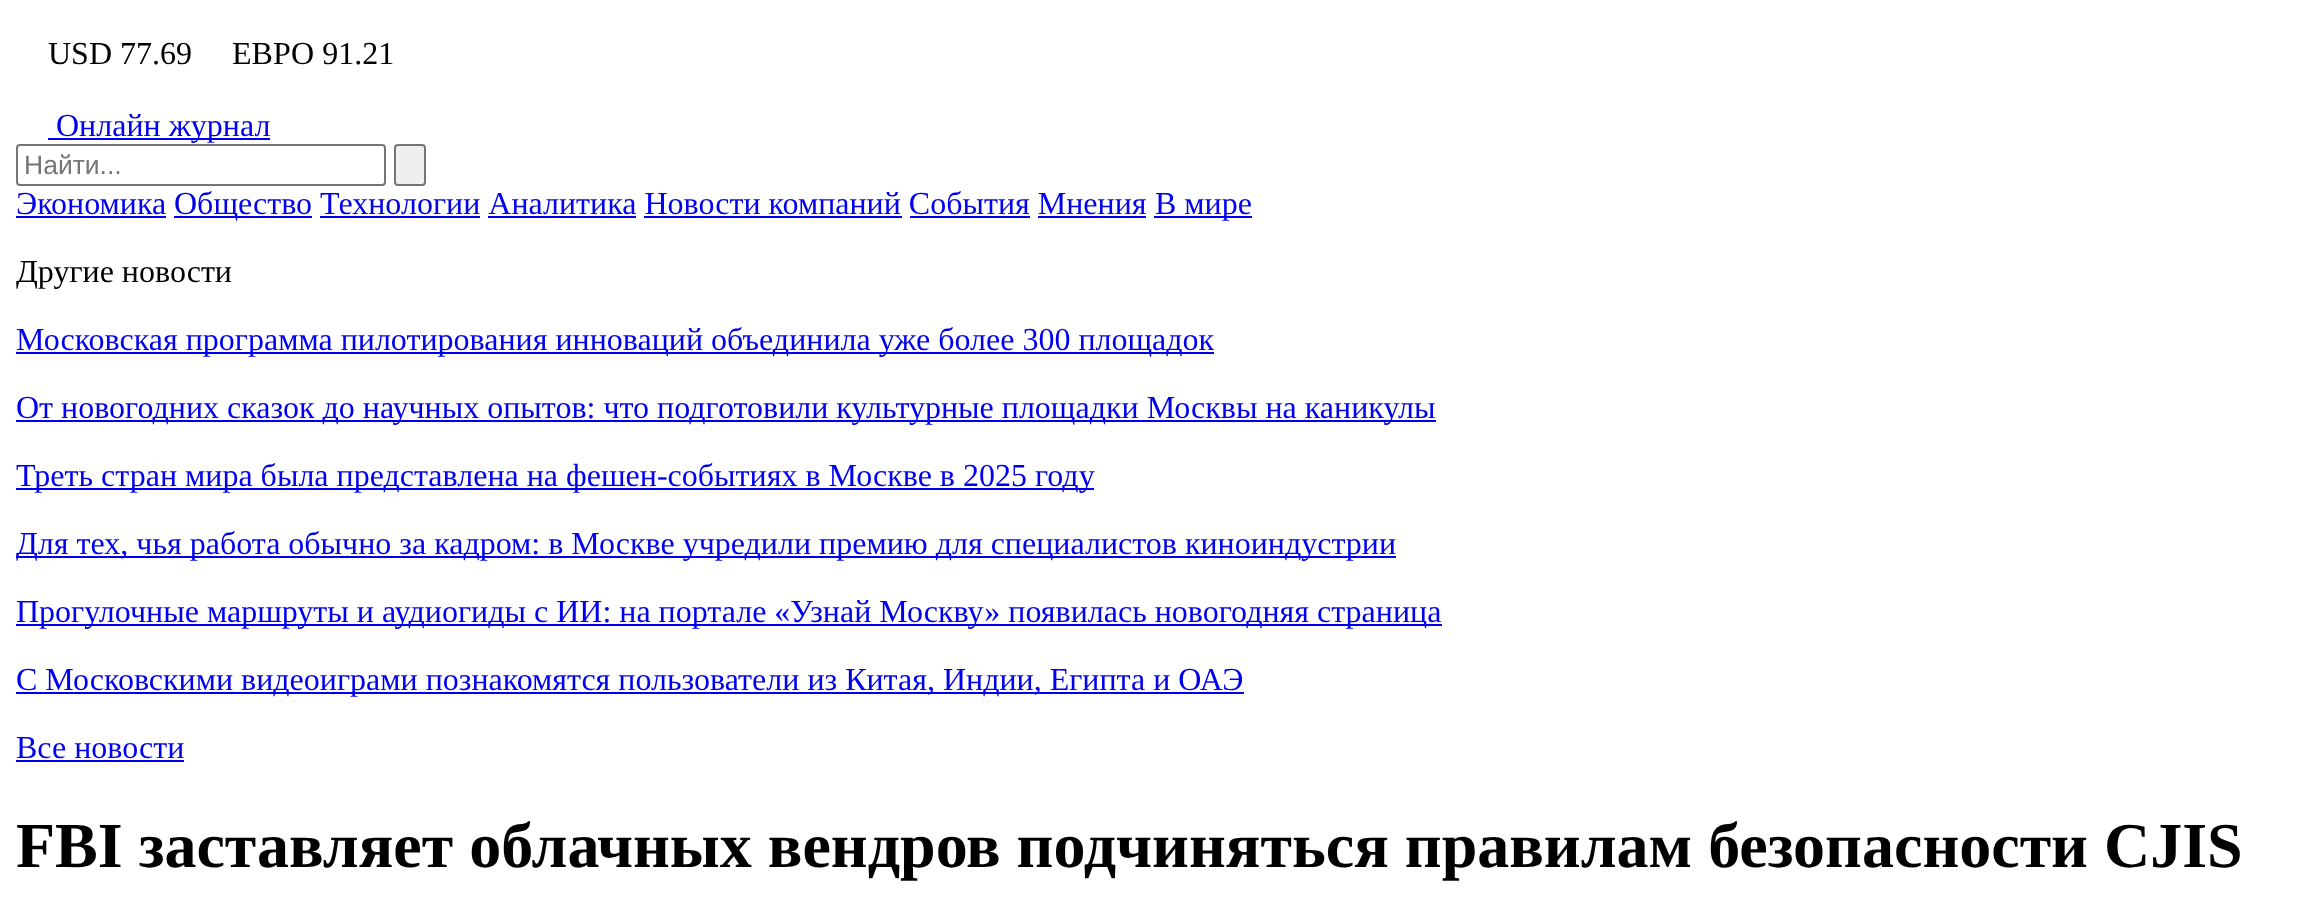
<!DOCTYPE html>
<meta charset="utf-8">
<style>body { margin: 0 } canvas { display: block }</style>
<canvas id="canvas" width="2318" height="913"></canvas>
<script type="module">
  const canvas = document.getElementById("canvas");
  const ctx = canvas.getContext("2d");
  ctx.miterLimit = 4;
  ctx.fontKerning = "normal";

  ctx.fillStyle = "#ffffff";
  ctx.fillRect(0, 0, 2318, 913);
  ctx.font = "32px Liberation Serif";
  ctx.fillStyle = "#000000";
  ctx.fillText("USD 77.69", 48, 64);
  ctx.fillText("ЕВРО 91.21", 232, 64);
  ctx.fillStyle = "#0000ee";
  ctx.fillRect(48, 138, 222, 2);
  ctx.fillText("Онлайн журнал", 56, 136);
  ctx.beginPath();
  ctx.roundRect(17, 145, 368, 40, 3);
  ctx.strokeStyle = "#767676";
  ctx.lineWidth = 2;
  ctx.stroke();
  ctx.font = "26.5px Liberation Sans";
  ctx.fillStyle = "#757575";
  ctx.fillText("Найти...", 24, 174);
  ctx.fillStyle = "#efefef";
  ctx.beginPath();
  ctx.roundRect(395, 145, 30, 40, 3);
  ctx.fill();
  ctx.stroke();
  ctx.font = "32px Liberation Serif";
  ctx.fillStyle = "#0000ee";
  ctx.fillText("Экономика", 16, 214);
  ctx.fillRect(16, 216, 150, 2);
  ctx.fillRect(174, 216, 138, 2);
  ctx.fillText("Общество Технологии Аналитика Новости компаний События Мнения", 174, 214);
  ctx.fillRect(1154, 216, 98, 2);
  ctx.fillText("В мире", 1155, 214);
  ctx.fillRect(320, 216, 160, 2);
  ctx.fillRect(488, 216, 148, 2);
  ctx.fillRect(644, 216, 258, 2);
  ctx.fillRect(910, 216, 120, 2);
  ctx.fillRect(1038, 216, 108, 2);
  ctx.fillStyle = "#000000";
  ctx.fillText("Другие новости", 16, 282);
  ctx.fillStyle = "#0000ee";
  ctx.fillRect(16, 352, 1198, 2);
  ctx.fillText("Московская программа пилотирования инноваций объединила уже более 300 площадок", 16, 350);
  ctx.fillRect(16, 420, 1420, 2);
  ctx.fillText("От новогодних сказок до научных опытов: что подготовили культурные площадки Москвы на каникулы", 16, 418);
  ctx.fillRect(16, 488, 1078, 2);
  ctx.fillText("Треть стран мира была представлена на фешен-событиях в Москве в 2025 году", 16, 486);
  ctx.fillRect(16, 556, 1380, 2);
  ctx.fillText("Для тех, чья работа обычно за кадром: в Москве учредили премию для специалистов киноиндустрии", 16, 554);
  ctx.fillRect(16, 624, 1426, 2);
  ctx.fillText("Прогулочные маршруты и аудиогиды с ИИ: на портале «Узнай Москву» появилась новогодняя страница", 16, 622);
  ctx.fillRect(16, 692, 1228, 2);
  ctx.fillText("С Московскими видеоиграми познакомятся пользователи из Китая, Индии, Египта и ОАЭ", 16, 690);
  ctx.fillText("Все новости", 16, 758);
  ctx.fillRect(16, 760, 168, 2);
  ctx.font = "bold 64px Liberation Serif";
  ctx.fillStyle = "#000000";
  ctx.fillText("FBI заставляет облачных вендров подчиняться правилам безопасности CJIS", 16, 867);
</script>
